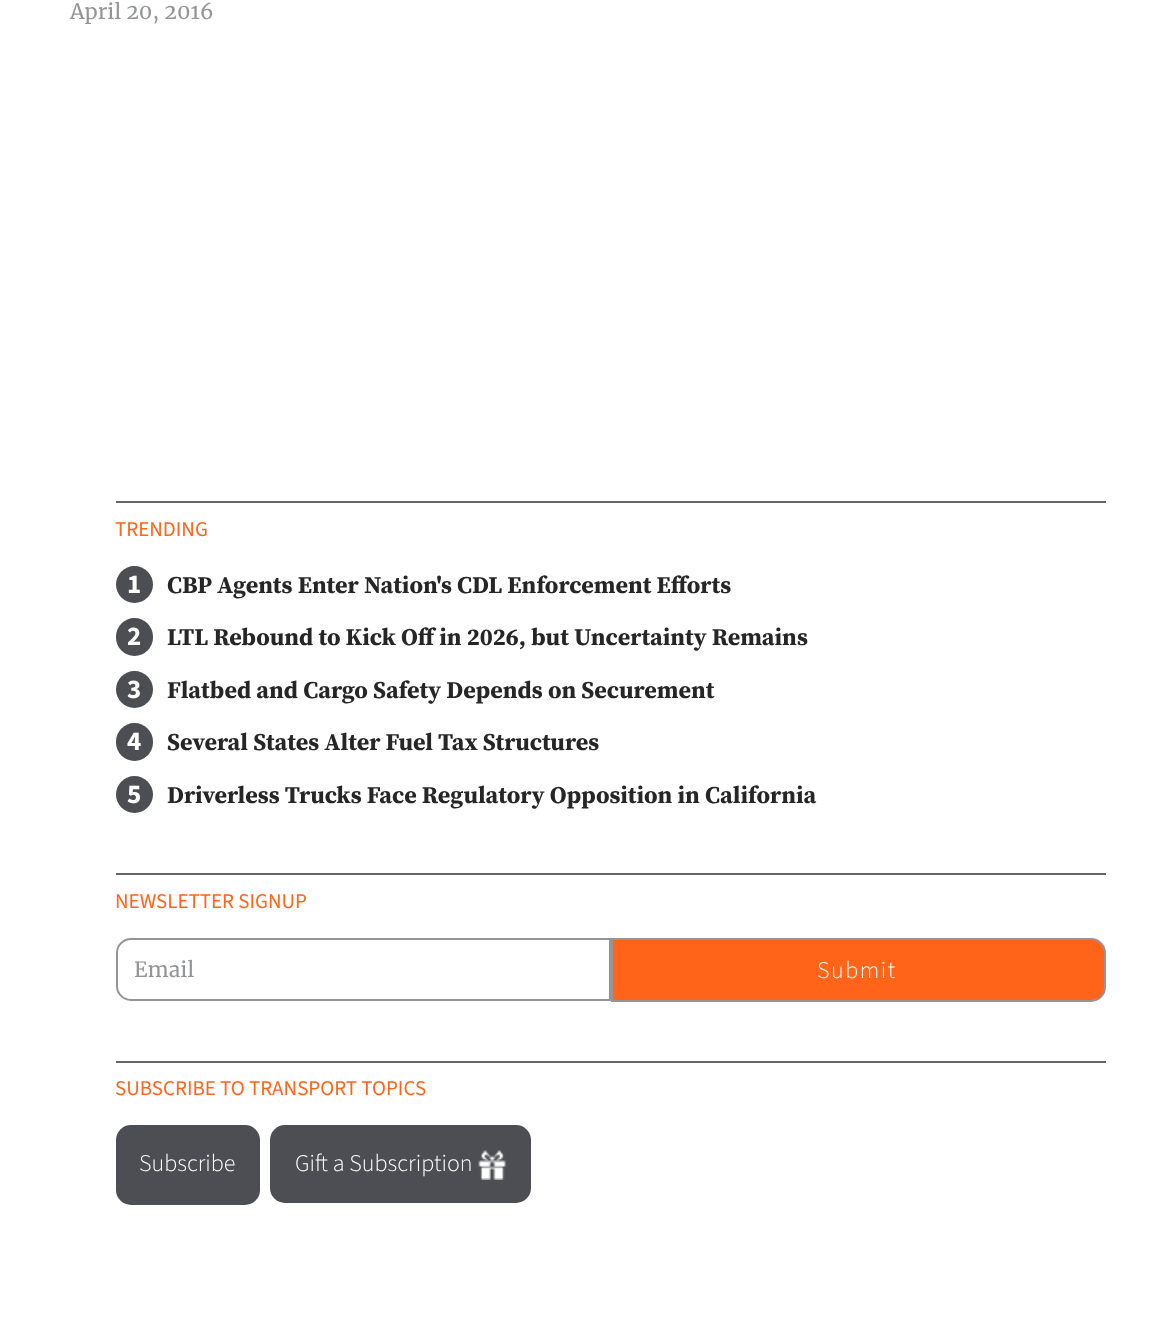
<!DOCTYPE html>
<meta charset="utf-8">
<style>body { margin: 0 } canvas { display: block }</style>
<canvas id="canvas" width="1150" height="1321"></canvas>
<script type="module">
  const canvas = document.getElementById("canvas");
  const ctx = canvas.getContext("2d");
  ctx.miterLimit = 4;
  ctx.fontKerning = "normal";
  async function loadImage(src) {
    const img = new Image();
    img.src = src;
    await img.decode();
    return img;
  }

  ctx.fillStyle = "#ffffff";
  ctx.fillRect(0, 0, 1150, 1321);
  ctx.font = "21px Merriweather";
  ctx.fillStyle = "#949598";
  ctx.fillText("April 20, 2016", 70, 19);
  ctx.fillStyle = "#666666";
  ctx.fillRect(116, 501, 990, 2);
  ctx.font = "21px 'Source Sans 3'";
  ctx.fillStyle = "#ff6418";
  ctx.fillText("TRENDING", 115, 536);
  ctx.fillStyle = "#4d4e53";
  ctx.beginPath();
  ctx.arc(134.5, 584.5, 18.5, 0, Math.PI * 2);
  ctx.fill();
  ctx.font = "bold 27px 'Source Sans 3'";
  ctx.fillStyle = "#ffffff";
  ctx.fillText("1", 127, 593);
  ctx.font = "bold 24px 'Source Serif 4'";
  ctx.fillStyle = "#262626";
  ctx.fillText("CBP Agents Enter Nation's CDL Enforcement Efforts", 167, 593);
  ctx.fillStyle = "#4d4e53";
  ctx.beginPath();
  ctx.roundRect(116, 618, 37, 38, 18.5);
  ctx.fill();
  ctx.font = "bold 27px 'Source Sans 3'";
  ctx.fillStyle = "#ffffff";
  ctx.fillText("2", 127, 645);
  ctx.font = "bold 24px 'Source Serif 4'";
  ctx.fillStyle = "#262626";
  ctx.fillText("LTL Rebound to Kick Off in 2026, but Uncertainty Remains", 167, 645);
  ctx.fillStyle = "#4d4e53";
  ctx.beginPath();
  ctx.arc(134.5, 689.5, 18.5, 0, Math.PI * 2);
  ctx.fill();
  ctx.font = "bold 27px 'Source Sans 3'";
  ctx.fillStyle = "#ffffff";
  ctx.fillText("3", 127, 698);
  ctx.font = "bold 24px 'Source Serif 4'";
  ctx.fillStyle = "#262626";
  ctx.fillText("Flatbed and Cargo Safety Depends on Securement", 167, 698);
  ctx.fillStyle = "#4d4e53";
  ctx.beginPath();
  ctx.roundRect(116, 723, 37, 38, 18.5);
  ctx.fill();
  ctx.font = "bold 27px 'Source Sans 3'";
  ctx.fillStyle = "#ffffff";
  ctx.fillText("4", 127, 750);
  ctx.font = "bold 24px 'Source Serif 4'";
  ctx.fillStyle = "#262626";
  ctx.fillText("Several States Alter Fuel Tax Structures", 167, 750);
  ctx.fillStyle = "#4d4e53";
  ctx.beginPath();
  ctx.arc(134.5, 794.5, 18.5, 0, Math.PI * 2);
  ctx.fill();
  ctx.font = "bold 27px 'Source Sans 3'";
  ctx.fillStyle = "#ffffff";
  ctx.fillText("5", 127, 803);
  ctx.font = "bold 24px 'Source Serif 4'";
  ctx.fillStyle = "#262626";
  ctx.fillText("Driverless Trucks Face Regulatory Opposition in California", 167, 803);
  ctx.fillStyle = "#666666";
  ctx.fillRect(116, 873, 990, 2);
  ctx.font = "21px 'Source Sans 3'";
  ctx.fillStyle = "#ff6418";
  ctx.fillText("NEWSLETTER SIGNUP", 115, 908);
  ctx.beginPath();
  ctx.roundRect(117, 939, 493, 61, [14, 0, 0, 14]);
  ctx.strokeStyle = "#949598";
  ctx.lineWidth = 2;
  ctx.stroke();
  ctx.font = "21px Merriweather";
  ctx.fillStyle = "#949598";
  ctx.fillText("Email", 134, 977);
  ctx.fillStyle = "#ff6418";
  ctx.beginPath();
  ctx.roundRect(612, 939, 493, 62, [0, 14, 14, 0]);
  ctx.fill();
  ctx.stroke();
  ctx.letterSpacing = "1.5px";
  ctx.font = "300 24px 'Source Sans 3'";
  ctx.fillStyle = "#ffffff";
  ctx.fillText("Submit", 817, 978);
  ctx.fillStyle = "#666666";
  ctx.fillRect(116, 1061, 990, 2);
  ctx.letterSpacing = "0px";
  ctx.font = "21px 'Source Sans 3'";
  ctx.fillStyle = "#ff6418";
  ctx.fillText("SUBSCRIBE TO TRANSPORT TOPICS", 115, 1095);
  ctx.fillStyle = "#4d4e53";
  ctx.beginPath();
  ctx.roundRect(116, 1125, 144, 80, 15);
  ctx.fill();
  ctx.font = "300 24px 'Source Sans 3'";
  ctx.fillStyle = "#ffffff";
  ctx.fillText("Subscribe", 139, 1171);
  ctx.fillStyle = "#4d4e53";
  ctx.beginPath();
  ctx.roundRect(270, 1125, 261, 78, 15);
  ctx.fill();
  ctx.fillStyle = "#ffffff";
  ctx.fillText("Gift a Subscription", 295, 1171);
  ctx.drawImage(await loadImage("img1.png"), 478, 1150, 28, 30);
</script>
